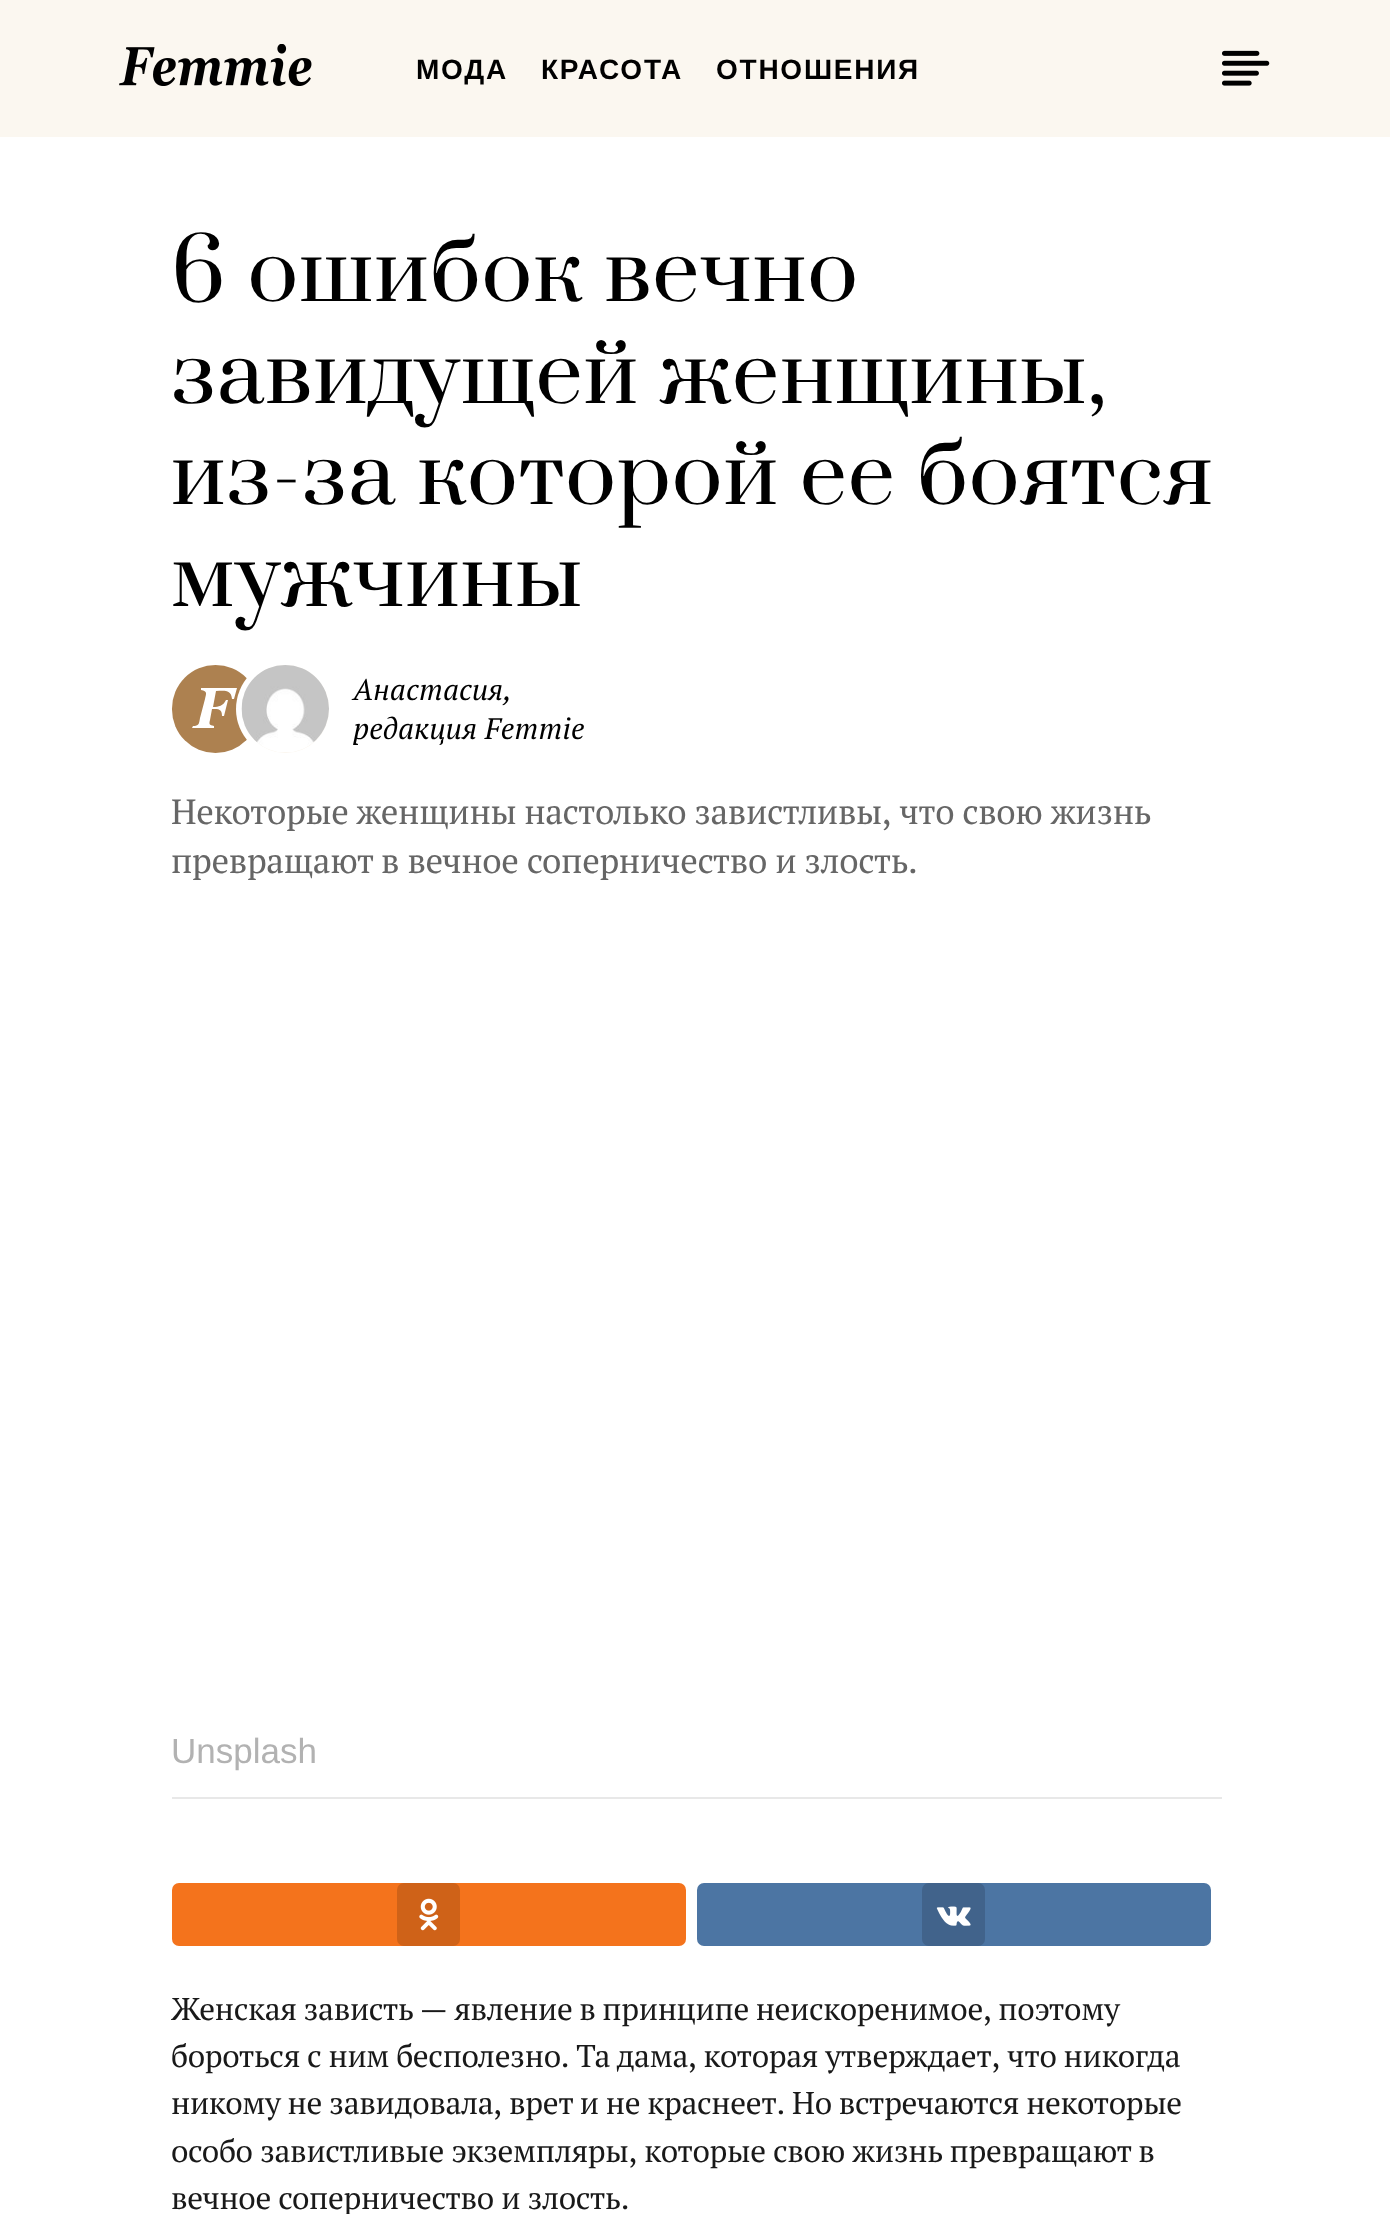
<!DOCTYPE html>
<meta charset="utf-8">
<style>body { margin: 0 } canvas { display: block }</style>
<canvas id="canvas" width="1390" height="2214"></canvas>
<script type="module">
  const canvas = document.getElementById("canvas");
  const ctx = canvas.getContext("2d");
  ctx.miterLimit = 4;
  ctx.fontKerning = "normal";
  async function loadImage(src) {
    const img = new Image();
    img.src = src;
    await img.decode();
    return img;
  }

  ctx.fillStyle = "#ffffff";
  ctx.fillRect(0, 0, 1390, 2214);
  ctx.fillStyle = "#fbf7f0";
  ctx.fillRect(0, 0, 1390, 137);
  ctx.drawImage(await loadImage("img1.png"), 119, 44, 193, 42);
  ctx.drawImage(await loadImage("img2.png"), 1222, 50, 48, 36);
  ctx.letterSpacing = "1.75px";
  ctx.font = "bold 28px Liberation Sans";
  ctx.fillStyle = "#000000";
  ctx.fillText("МОДА", 416, 79);
  ctx.fillText("КРАСОТА", 541, 79);
  ctx.fillText("ОТНОШЕНИЯ", 716, 79);
  ctx.letterSpacing = "0.9px";
  ctx.font = "84px Prata";
  ctx.fillText("6 ошибок вечно", 171, 301);
  ctx.fillText("завидущей женщины,", 171, 403);
  ctx.fillText("из-за которой ее боятся", 171, 504);
  ctx.fillText("мужчины", 171, 606);
  ctx.fillStyle = "#ad8150";
  ctx.beginPath();
  ctx.roundRect(172, 665, 87, 88, 43.5);
  ctx.fill();
  ctx.fillStyle = "#ffffff";
  ctx.beginPath();
  ctx.moveTo(237, 688);
  ctx.lineTo(234, 699);
  ctx.lineTo(232, 699);
  ctx.bezierCurveTo(231, 689, 224, 691, 216, 691);
  ctx.lineTo(213, 707);
  ctx.bezierCurveTo(219, 707, 223, 706, 226, 700);
  ctx.lineTo(228, 700);
  ctx.lineTo(224, 716);
  ctx.lineTo(222, 716);
  ctx.bezierCurveTo(222, 709, 219, 709, 212, 709);
  ctx.lineTo(210, 720);
  ctx.bezierCurveTo(209, 724, 209, 725, 214, 726);
  ctx.lineTo(214, 728);
  ctx.lineTo(192, 728);
  ctx.lineTo(193, 726);
  ctx.bezierCurveTo(199, 726, 199, 724, 200, 718);
  ctx.lineTo(205, 699);
  ctx.bezierCurveTo(206, 694, 208, 691, 201, 690);
  ctx.lineTo(201, 688);
  ctx.closePath();
  ctx.fill("evenodd");
  ctx.beginPath();
  ctx.arc(285, 709, 49, 0, Math.PI * 2);
  ctx.fill();
  ctx.fillStyle = "#fbf7f0";
  ctx.beginPath();
  ctx.roundRect(242, 665, 87, 88, 43.5);
  ctx.fill();
  ctx.drawImage(await loadImage("img3.png"), 241, 665, 88, 87);
  ctx.letterSpacing = "0.2px";
  ctx.font = "italic 29.75px PT Serif";
  ctx.fillStyle = "#000000";
  ctx.fillText("Анастасия,", 353, 700);
  ctx.fillText("редакция Femmie", 353, 739);
  ctx.letterSpacing = "-0.35px";
  ctx.wordSpacing = "-0.25px";
  ctx.font = "35px PT Serif";
  ctx.fillStyle = "#666666";
  ctx.fillText("Некоторые женщины настолько завистливы, что свою жизнь", 171, 824);
  ctx.wordSpacing = "0px";
  ctx.fillText("превращают в вечное соперничество и злость.", 171, 873);
  ctx.fillStyle = "#e8e8e8";
  ctx.fillRect(172, 1797, 1050, 2);
  ctx.letterSpacing = "0px";
  ctx.font = "35px Liberation Sans";
  ctx.fillStyle = "#b2b2b2";
  ctx.fillText("Unsplash", 171, 1763);
  ctx.fillStyle = "#f4731c";
  ctx.beginPath();
  ctx.roundRect(172, 1883, 514, 63, 7);
  ctx.fill();
  ctx.fillStyle = "#cf6218";
  ctx.beginPath();
  ctx.roundRect(397, 1883, 63, 63, 7);
  ctx.fill();
  ctx.drawImage(await loadImage("img4.png"), 419, 1898, 20, 33);
  ctx.fillStyle = "#4c75a3";
  ctx.beginPath();
  ctx.roundRect(697, 1883, 514, 63, 7);
  ctx.fill();
  ctx.fillStyle = "#41638b";
  ctx.beginPath();
  ctx.roundRect(922, 1883, 63, 63, 7);
  ctx.fill();
  ctx.drawImage(await loadImage("img5.png"), 936, 1906, 35, 20);
  ctx.letterSpacing = "-0.35px";
  ctx.wordSpacing = "-0.5px";
  ctx.font = "31.5px PT Serif";
  ctx.fillStyle = "#191919";
  ctx.fillText("Женская зависть — явление в принципе неискоренимое, поэтому", 171, 2020);
  ctx.wordSpacing = "-0.25px";
  ctx.fillText("бороться с ним бесполезно. Та дама, которая утверждает, что никогда", 171, 2067);
  ctx.fillText("никому не завидовала, врет и не краснеет. Но встречаются некоторые", 171, 2114);
  ctx.wordSpacing = "0px";
  ctx.fillText("особо завистливые экземпляры, которые свою жизнь превращают в", 171, 2162);
  ctx.fillText("вечное соперничество и злость.", 171, 2209);
</script>
